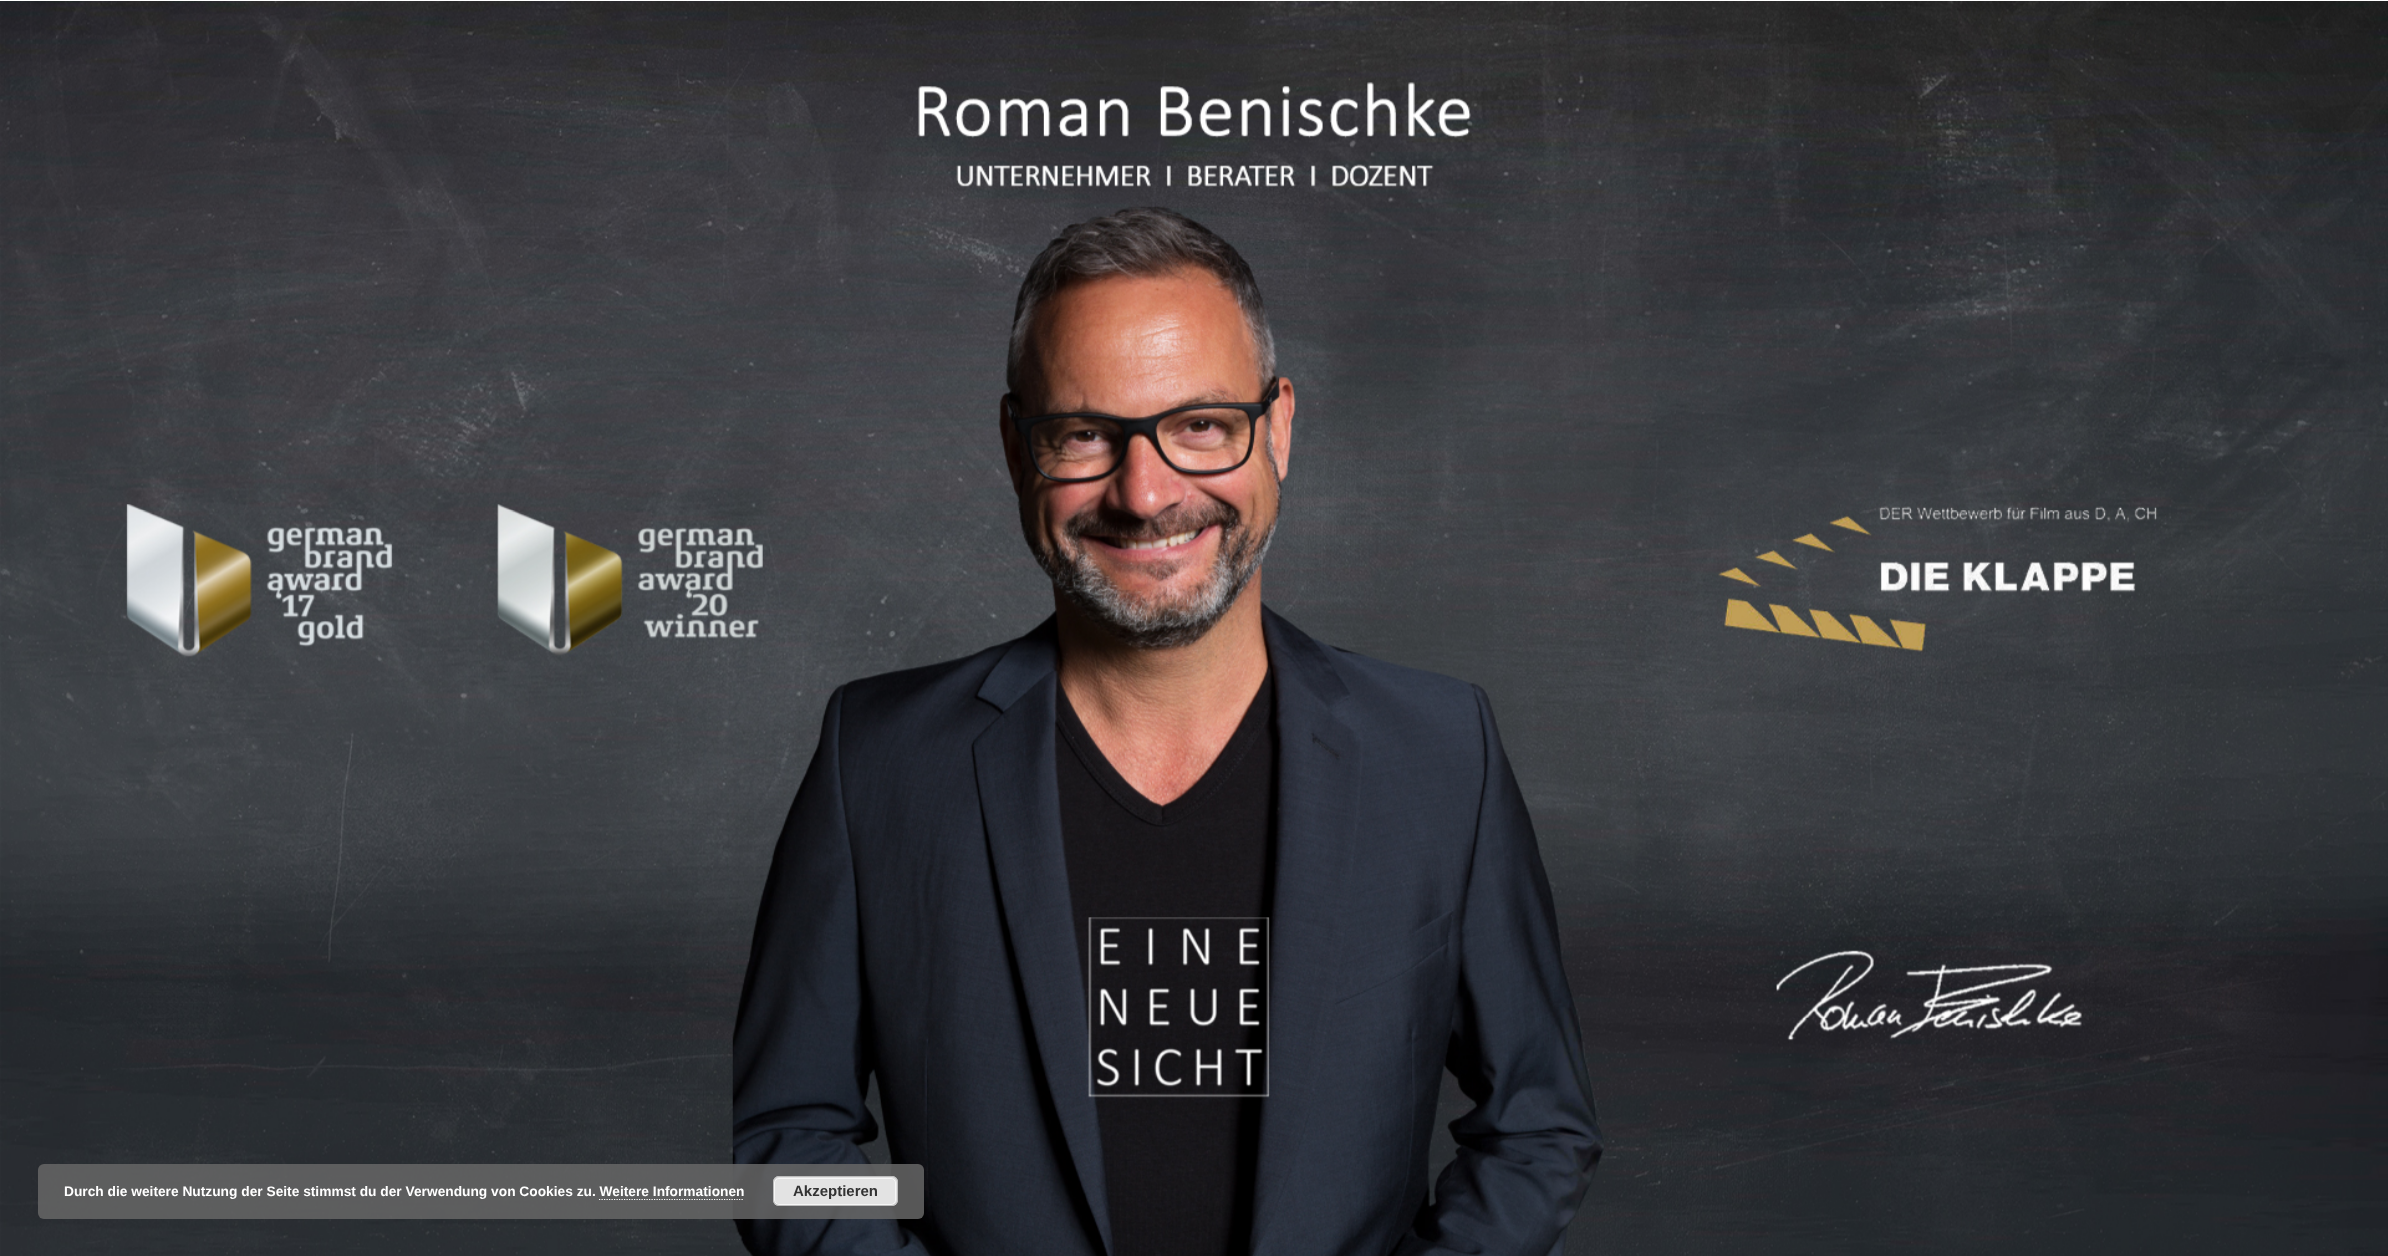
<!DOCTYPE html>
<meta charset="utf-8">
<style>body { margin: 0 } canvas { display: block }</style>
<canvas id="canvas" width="2388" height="1256"></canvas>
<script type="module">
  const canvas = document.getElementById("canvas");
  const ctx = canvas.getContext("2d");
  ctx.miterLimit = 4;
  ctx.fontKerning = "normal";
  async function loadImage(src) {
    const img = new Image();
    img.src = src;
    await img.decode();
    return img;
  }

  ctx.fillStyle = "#ffffff";
  ctx.fillRect(0, 0, 2388, 1256);
  ctx.drawImage(await loadImage("img1.png"), 0, 1, 2388, 1255);
  ctx.fillStyle = "rgba(102, 102, 102, 0.85)";
  ctx.beginPath();
  ctx.roundRect(38, 1164, 886, 55, 6);
  ctx.fill();
  ctx.font = "bold 13.75px Liberation Sans";
  ctx.fillStyle = "#ffffff";
  ctx.fillText("Durch die weitere Nutzung der Seite stimmst du der Verwendung von Cookies zu. Weitere Informationen", 64, 1196);
  ctx.fillStyle = "#e3e3e3";
  ctx.beginPath();
  ctx.roundRect(773, 1176, 125, 30, 6);
  ctx.fill();
  ctx.beginPath();
  ctx.roundRect(774.5, 1178.5, 121, 26, 4.5);
  ctx.strokeStyle = "#f6f6f6";
  ctx.stroke();
  ctx.beginPath();
  ctx.roundRect(773.5, 1176.5, 124, 29, 5.5);
  ctx.strokeStyle = "#bbbbbb";
  ctx.stroke();
  ctx.font = "bold 15px Liberation Sans";
  ctx.fillStyle = "#333333";
  ctx.fillText("Akzeptieren", 793, 1196);
  ctx.beginPath();
  ctx.moveTo(599, 1199.5);
  ctx.lineTo(744, 1199.5);
  ctx.strokeStyle = "#ffffff";
  ctx.lineWidth = 1.2;
  ctx.setLineDash([1.25, 1.25]);
  ctx.stroke();
</script>
